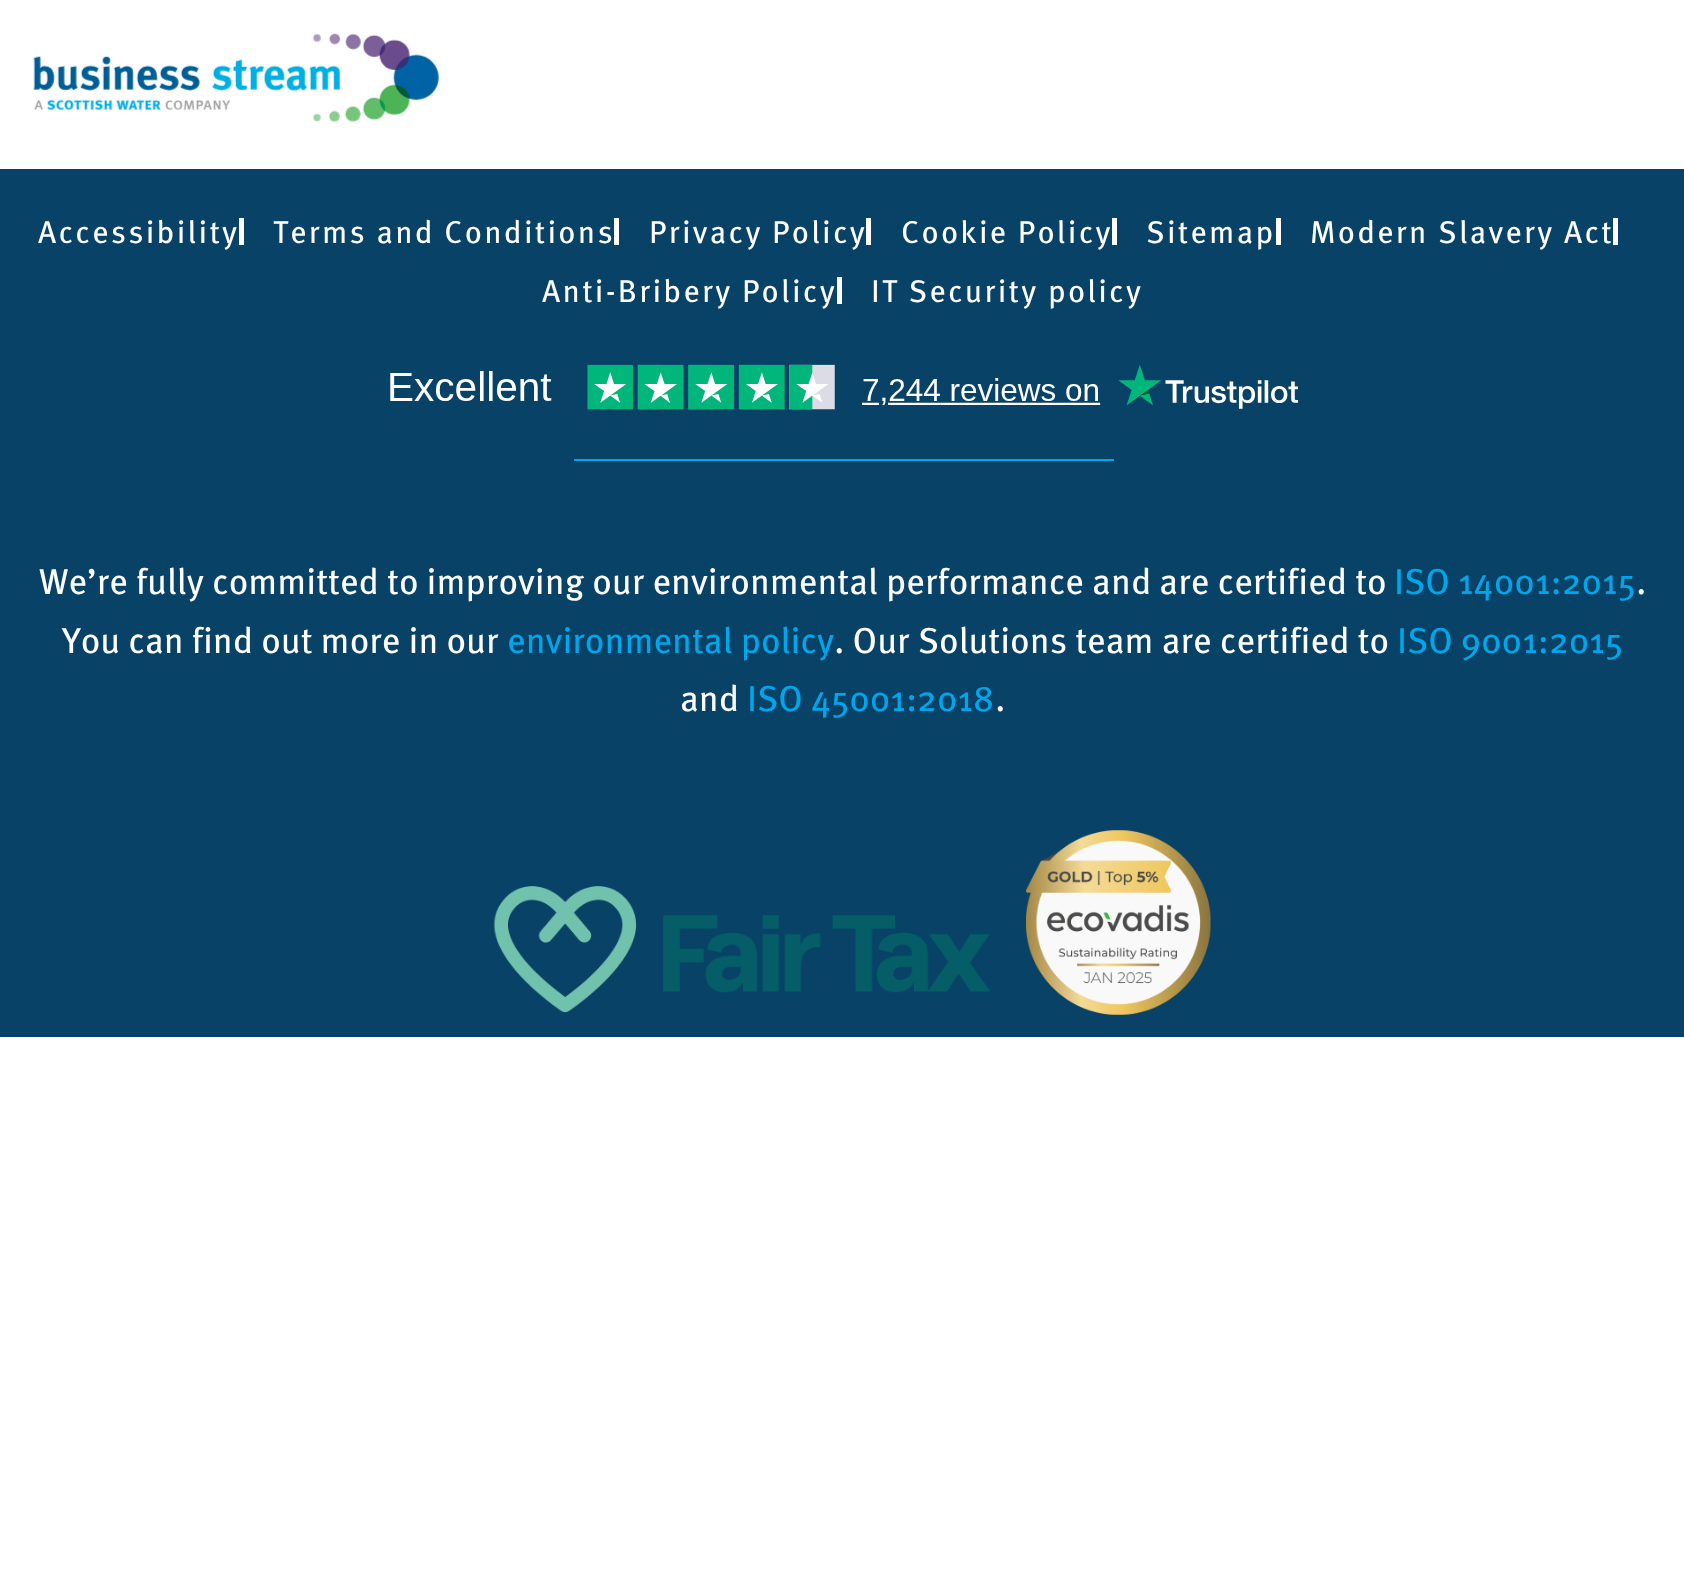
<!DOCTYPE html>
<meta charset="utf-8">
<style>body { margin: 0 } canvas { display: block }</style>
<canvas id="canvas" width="1684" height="1569"></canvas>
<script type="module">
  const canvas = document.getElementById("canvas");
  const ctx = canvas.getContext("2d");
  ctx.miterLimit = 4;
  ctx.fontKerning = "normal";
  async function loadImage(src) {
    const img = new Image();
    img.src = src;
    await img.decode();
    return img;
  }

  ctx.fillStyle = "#ffffff";
  ctx.fillRect(0, 0, 1684, 1569);
  ctx.drawImage(await loadImage("img1.png"), 33, 33, 406, 89);
  ctx.fillStyle = "#094267";
  ctx.fillRect(0, 169, 1684, 868);
  ctx.letterSpacing = "2.25px";
  ctx.font = "31.5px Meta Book";
  ctx.fillStyle = "#ffffff";
  ctx.fillText("Accessibility", 38, 243);
  ctx.fillRect(239, 218, 5, 27);
  ctx.fillText("Terms and Conditions", 273, 243);
  ctx.fillRect(614, 218, 5, 27);
  ctx.fillText("Privacy Policy", 649, 243);
  ctx.fillRect(866, 218, 5, 27);
  ctx.fillText("Cookie Policy", 901, 243);
  ctx.fillRect(1112, 218, 5, 27);
  ctx.fillText("Sitemap", 1146, 243);
  ctx.fillRect(1276, 218, 5, 27);
  ctx.fillText("Modern Slavery Act", 1310, 243);
  ctx.fillRect(1613, 218, 5, 27);
  ctx.fillText("Anti-Bribery Policy", 542, 302);
  ctx.fillRect(837, 277, 5, 27);
  ctx.fillText("IT Security policy", 871, 302);
  ctx.drawImage(await loadImage("img2.png"), 390, 364, 908, 46);
  ctx.fillStyle = "#00a6eb";
  ctx.fillRect(574, 459, 540, 2);
  ctx.letterSpacing = "0px";
  ctx.font = "36px Meta Book";
  ctx.fillStyle = "#ffffff";
  ctx.fillText("We’re fully committed to improving our environmental performance and are certified to", 39, 594);
  ctx.fillStyle = "#00a6eb";
  ctx.fillText("ISO 14001:2015", 1394, 594);
  ctx.fillStyle = "#ffffff";
  ctx.fillText(".", 1636, 594);
  ctx.fillText("You can find out more in our", 62, 653);
  ctx.fillStyle = "#00a6eb";
  ctx.fillText("environmental policy", 507, 653);
  ctx.fillStyle = "#ffffff";
  ctx.fillText(". Our Solutions team are certified to", 834, 653);
  ctx.fillStyle = "#00a6eb";
  ctx.fillText("ISO 9001:2015", 1397, 653);
  ctx.fillStyle = "#ffffff";
  ctx.fillText("and", 680, 711);
  ctx.fillStyle = "#00a6eb";
  ctx.fillText("ISO 45001:2018", 747, 711);
  ctx.fillStyle = "#ffffff";
  ctx.fillText(".", 995, 711);
  ctx.drawImage(await loadImage("img3.png"), 493, 886, 498, 127);
  ctx.drawImage(await loadImage("img4.png"), 1026, 830, 185, 185);
</script>
